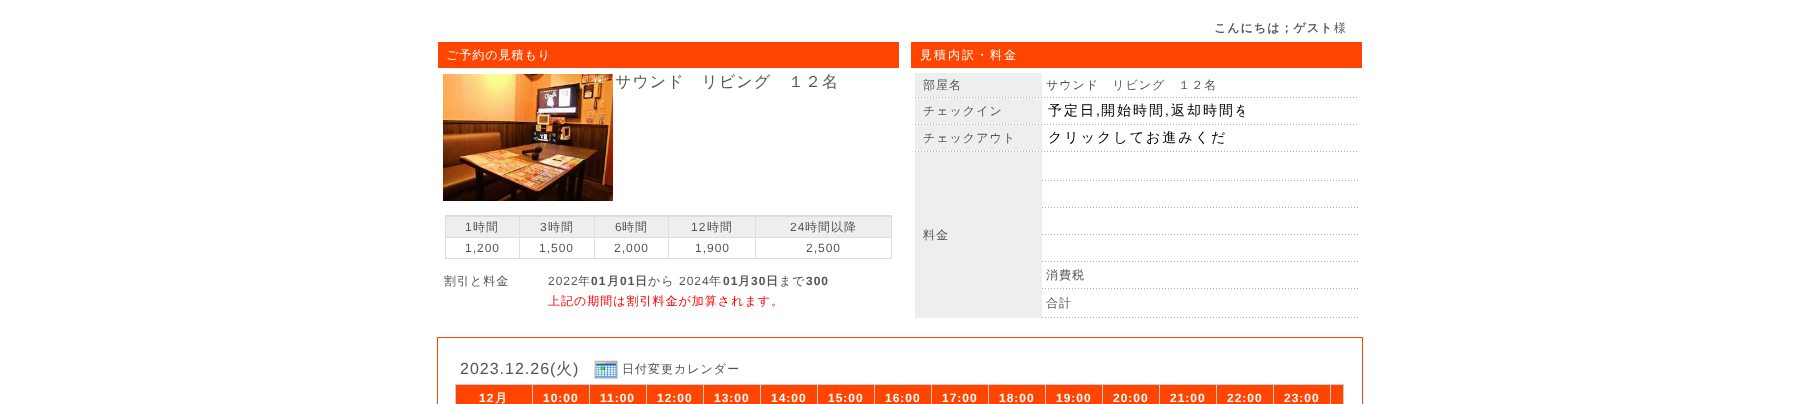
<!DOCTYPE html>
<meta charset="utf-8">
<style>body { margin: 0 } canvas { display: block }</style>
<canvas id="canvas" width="1799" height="404"></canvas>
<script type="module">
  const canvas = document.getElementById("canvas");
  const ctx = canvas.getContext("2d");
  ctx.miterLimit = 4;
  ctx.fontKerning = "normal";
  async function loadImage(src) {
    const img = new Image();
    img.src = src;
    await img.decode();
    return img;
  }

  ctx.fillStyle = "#ffffff";
  ctx.fillRect(0, 0, 1799, 404);
  ctx.letterSpacing = "1px";
  ctx.font = "bold 12px WenQuanYi Zen Hei";
  ctx.fillStyle = "#555555";
  ctx.fillText("こんにちは；ゲスト", 1214, 32);
  ctx.font = "500 12px WenQuanYi Zen Hei";
  ctx.fillText("様", 1334, 32);
  ctx.fillStyle = "#ff4500";
  ctx.fillRect(438, 42, 461, 26);
  ctx.fillStyle = "#ffffff";
  ctx.fillText("ご予約の見積もり", 446, 59);
  ctx.drawImage(await loadImage("img1.png"), 443, 74, 170, 127);
  ctx.font = "500 16px WenQuanYi Zen Hei";
  ctx.fillStyle = "#555555";
  ctx.fillText("サウンド　リビング　１２名", 615, 87);
  ctx.fillStyle = "#dddddd";
  ctx.fillRect(445, 215, 447, 44);
  ctx.fillStyle = "#eeeeee";
  ctx.fillRect(446, 217, 73, 20);
  ctx.font = "12px Liberation Sans";
  ctx.fillStyle = "#555555";
  ctx.fillText("1", 465, 231);
  ctx.font = "500 12px WenQuanYi Zen Hei";
  ctx.fillText("時間", 473, 231);
  ctx.fillStyle = "#eeeeee";
  ctx.fillRect(520, 217, 74, 20);
  ctx.font = "12px Liberation Sans";
  ctx.fillStyle = "#555555";
  ctx.fillText("3", 540, 231);
  ctx.font = "500 12px WenQuanYi Zen Hei";
  ctx.fillText("時間", 548, 231);
  ctx.fillStyle = "#eeeeee";
  ctx.fillRect(595, 217, 73, 20);
  ctx.font = "12px Liberation Sans";
  ctx.fillStyle = "#555555";
  ctx.fillText("6", 615, 231);
  ctx.font = "500 12px WenQuanYi Zen Hei";
  ctx.fillText("時間", 622, 231);
  ctx.fillStyle = "#eeeeee";
  ctx.fillRect(669, 217, 86, 20);
  ctx.font = "12px Liberation Sans";
  ctx.fillStyle = "#555555";
  ctx.fillText("12", 691, 231);
  ctx.font = "500 12px WenQuanYi Zen Hei";
  ctx.fillText("時間", 707, 231);
  ctx.fillStyle = "#eeeeee";
  ctx.fillRect(756, 217, 135, 20);
  ctx.font = "12px Liberation Sans";
  ctx.fillStyle = "#555555";
  ctx.fillText("24", 790, 231);
  ctx.font = "500 12px WenQuanYi Zen Hei";
  ctx.fillText("時間以降", 805, 231);
  ctx.fillStyle = "#ffffff";
  ctx.fillRect(446, 238, 73, 20);
  ctx.font = "12px Liberation Sans";
  ctx.fillStyle = "#555555";
  ctx.fillText("1,200", 465, 252);
  ctx.fillStyle = "#ffffff";
  ctx.fillRect(520, 238, 74, 20);
  ctx.fillStyle = "#555555";
  ctx.fillText("1,500", 539, 252);
  ctx.fillStyle = "#ffffff";
  ctx.fillRect(595, 238, 73, 20);
  ctx.fillStyle = "#555555";
  ctx.fillText("2,000", 614, 252);
  ctx.fillStyle = "#ffffff";
  ctx.fillRect(669, 238, 86, 20);
  ctx.fillStyle = "#555555";
  ctx.fillText("1,900", 695, 252);
  ctx.fillStyle = "#ffffff";
  ctx.fillRect(756, 238, 135, 20);
  ctx.fillStyle = "#555555";
  ctx.fillText("2,500", 806, 252);
  ctx.font = "500 12px WenQuanYi Zen Hei";
  ctx.fillText("割引と料金", 444, 285);
  ctx.font = "12px Liberation Sans";
  ctx.fillText("2022", 548, 285);
  ctx.font = "500 12px WenQuanYi Zen Hei";
  ctx.fillText("年", 578, 285);
  ctx.font = "bold 12px Liberation Sans";
  ctx.fillText("01", 591, 285);
  ctx.font = "bold 12px WenQuanYi Zen Hei";
  ctx.fillText("月", 607, 285);
  ctx.font = "bold 12px Liberation Sans";
  ctx.fillText("01", 620, 285);
  ctx.font = "bold 12px WenQuanYi Zen Hei";
  ctx.fillText("日", 635, 285);
  ctx.font = "500 12px WenQuanYi Zen Hei";
  ctx.fillText("から", 648, 285);
  ctx.font = "12px Liberation Sans";
  ctx.fillText("2024", 679, 285);
  ctx.font = "500 12px WenQuanYi Zen Hei";
  ctx.fillText("年", 709, 285);
  ctx.font = "bold 12px Liberation Sans";
  ctx.fillText("01", 723, 285);
  ctx.font = "bold 12px WenQuanYi Zen Hei";
  ctx.fillText("月", 738, 285);
  ctx.font = "bold 12px Liberation Sans";
  ctx.fillText("30", 751, 285);
  ctx.font = "bold 12px WenQuanYi Zen Hei";
  ctx.fillText("日", 766, 285);
  ctx.font = "500 12px WenQuanYi Zen Hei";
  ctx.fillText("まで", 779, 285);
  ctx.font = "bold 12px Liberation Sans";
  ctx.fillText("300", 806, 285);
  ctx.font = "500 12px WenQuanYi Zen Hei";
  ctx.fillStyle = "#ff0000";
  ctx.fillText("上記の期間は割引料金が加算されます。", 548, 305);
  ctx.fillStyle = "#ff4500";
  ctx.fillRect(911, 42, 451, 26);
  ctx.letterSpacing = "2px";
  ctx.fillStyle = "#ffffff";
  ctx.fillText("見積内訳・料金", 920, 59);
  ctx.fillStyle = "#eeeeee";
  ctx.fillRect(915, 73, 127, 24);
  ctx.letterSpacing = "1px";
  ctx.fillStyle = "#555555";
  ctx.fillText("部屋名", 923, 89);
  ctx.fillText("サウンド　リビング　１２名", 1046, 89);
  ctx.drawImage(await loadImage("img2.png"), 915, 97, 442, 1);
  ctx.fillStyle = "#eeeeee";
  ctx.fillRect(915, 98, 127, 26);
  ctx.fillStyle = "#555555";
  ctx.fillText("チェックイン", 923, 115);
  ctx.letterSpacing = "2px";
  ctx.font = "500 14px WenQuanYi Zen Hei";
  ctx.fillStyle = "#000000";
  ctx.fillText("予定日", 1048, 115);
  ctx.font = "14px Liberation Sans";
  ctx.fillText(",", 1096, 115);
  ctx.font = "500 14px WenQuanYi Zen Hei";
  ctx.fillText("開始時間", 1101, 115);
  ctx.font = "14px Liberation Sans";
  ctx.fillText(",", 1165, 115);
  ctx.save();
  ctx.beginPath();
  ctx.rect(1048, 102, 196, 18);
  ctx.clip();
  ctx.font = "500 14px WenQuanYi Zen Hei";
  ctx.fillText("返却時間を", 1171, 115);
  ctx.restore();
  ctx.drawImage(await loadImage("img2.png"), 915, 124, 442, 1);
  ctx.fillStyle = "#eeeeee";
  ctx.fillRect(915, 125, 127, 26);
  ctx.letterSpacing = "1px";
  ctx.font = "500 12px WenQuanYi Zen Hei";
  ctx.fillStyle = "#555555";
  ctx.fillText("チェックアウト", 923, 142);
  ctx.letterSpacing = "2px";
  ctx.font = "500 14px WenQuanYi Zen Hei";
  ctx.fillStyle = "#000000";
  ctx.fillText("クリックしてお進みくだ", 1048, 142);
  ctx.drawImage(await loadImage("img2.png"), 915, 151, 442, 1);
  ctx.drawImage(await loadImage("img3.png"), 1042, 180, 316, 1);
  ctx.drawImage(await loadImage("img3.png"), 1042, 207, 316, 1);
  ctx.fillStyle = "#eeeeee";
  ctx.fillRect(915, 152, 127, 166);
  ctx.letterSpacing = "1px";
  ctx.font = "500 12px WenQuanYi Zen Hei";
  ctx.fillStyle = "#555555";
  ctx.fillText("料金", 923, 239);
  ctx.drawImage(await loadImage("img3.png"), 1042, 234, 316, 1);
  ctx.drawImage(await loadImage("img3.png"), 1042, 261, 316, 1);
  ctx.fillText("消費税", 1046, 279);
  ctx.drawImage(await loadImage("img3.png"), 1042, 288, 316, 1);
  ctx.fillText("合計", 1046, 307);
  ctx.drawImage(await loadImage("img3.png"), 1042, 317, 316, 1);
  ctx.fillStyle = "#ff4500";
  ctx.fillRect(437, 337, 926, 67);
  ctx.fillStyle = "#ffffff";
  ctx.fillRect(438, 338, 924, 66);
  ctx.font = "16px Liberation Sans";
  ctx.fillStyle = "#555555";
  ctx.fillText("2023.12.26(", 460, 374);
  ctx.font = "500 16px WenQuanYi Zen Hei";
  ctx.fillText("火", 556, 374);
  ctx.font = "16px Liberation Sans";
  ctx.fillText(")", 573, 374);
  ctx.drawImage(await loadImage("img4.png"), 594, 360, 24, 19);
  ctx.font = "500 12px WenQuanYi Zen Hei";
  ctx.fillText("日付変更カレンダー", 622, 373);
  ctx.fillStyle = "#cccccc";
  ctx.fillRect(455, 384, 889, 20);
  ctx.fillStyle = "#ff4500";
  ctx.fillRect(456, 385, 76, 19);
  ctx.font = "bold 12px Liberation Sans";
  ctx.fillStyle = "#ffffff";
  ctx.fillText("12", 479, 402);
  ctx.font = "bold 12px WenQuanYi Zen Hei";
  ctx.fillText("月", 495, 402);
  ctx.fillStyle = "#ff4500";
  ctx.fillRect(533, 385, 56, 19);
  ctx.font = "bold 12px Liberation Sans";
  ctx.fillStyle = "#ffffff";
  ctx.fillText("10:00", 543, 402);
  ctx.fillStyle = "#ff4500";
  ctx.fillRect(590, 385, 56, 19);
  ctx.fillStyle = "#ffffff";
  ctx.fillText("11:00", 600, 402);
  ctx.fillStyle = "#ff4500";
  ctx.fillRect(647, 385, 56, 19);
  ctx.fillStyle = "#ffffff";
  ctx.fillText("12:00", 657, 402);
  ctx.fillStyle = "#ff4500";
  ctx.fillRect(704, 385, 56, 19);
  ctx.fillStyle = "#ffffff";
  ctx.fillText("13:00", 714, 402);
  ctx.fillStyle = "#ff4500";
  ctx.fillRect(761, 385, 56, 19);
  ctx.fillStyle = "#ffffff";
  ctx.fillText("14:00", 771, 402);
  ctx.fillStyle = "#ff4500";
  ctx.fillRect(818, 385, 56, 19);
  ctx.fillStyle = "#ffffff";
  ctx.fillText("15:00", 828, 402);
  ctx.fillStyle = "#ff4500";
  ctx.fillRect(875, 385, 56, 19);
  ctx.fillStyle = "#ffffff";
  ctx.fillText("16:00", 885, 402);
  ctx.fillStyle = "#ff4500";
  ctx.fillRect(932, 385, 56, 19);
  ctx.fillStyle = "#ffffff";
  ctx.fillText("17:00", 942, 402);
  ctx.fillStyle = "#ff4500";
  ctx.fillRect(989, 385, 56, 19);
  ctx.fillStyle = "#ffffff";
  ctx.fillText("18:00", 999, 402);
  ctx.fillStyle = "#ff4500";
  ctx.fillRect(1046, 385, 56, 19);
  ctx.fillStyle = "#ffffff";
  ctx.fillText("19:00", 1056, 402);
  ctx.fillStyle = "#ff4500";
  ctx.fillRect(1103, 385, 56, 19);
  ctx.fillStyle = "#ffffff";
  ctx.fillText("20:00", 1113, 402);
  ctx.fillStyle = "#ff4500";
  ctx.fillRect(1160, 385, 56, 19);
  ctx.fillStyle = "#ffffff";
  ctx.fillText("21:00", 1170, 402);
  ctx.fillStyle = "#ff4500";
  ctx.fillRect(1217, 385, 56, 19);
  ctx.fillStyle = "#ffffff";
  ctx.fillText("22:00", 1227, 402);
  ctx.fillStyle = "#ff4500";
  ctx.fillRect(1274, 385, 56, 19);
  ctx.fillStyle = "#ffffff";
  ctx.fillText("23:00", 1284, 402);
  ctx.fillStyle = "#ff4500";
  ctx.fillRect(1331, 385, 12, 19);
</script>
